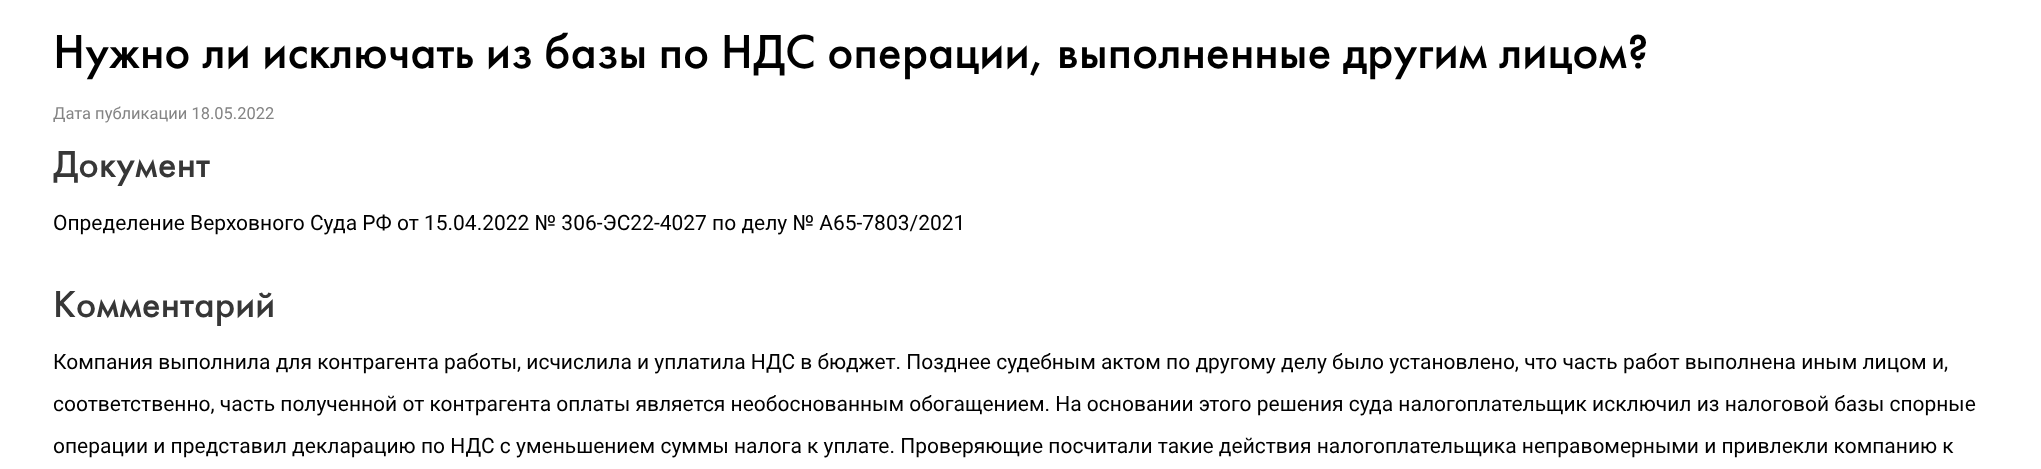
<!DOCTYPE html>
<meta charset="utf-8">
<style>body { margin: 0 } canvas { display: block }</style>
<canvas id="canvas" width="2041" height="469"></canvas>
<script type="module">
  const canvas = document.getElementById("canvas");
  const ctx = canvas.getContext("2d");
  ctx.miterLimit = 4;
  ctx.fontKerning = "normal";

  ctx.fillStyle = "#ffffff";
  ctx.fillRect(0, 0, 2041, 469);
  ctx.font = "500 49.5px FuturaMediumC";
  ctx.fillStyle = "#000000";
  ctx.fillText("Нужно ли исключать из базы по НДС операции, выполненные другим лицом?", 53, 68);
  ctx.font = "16.5px Roboto";
  ctx.fillStyle = "#848484";
  ctx.fillText("Дата публикации 18.05.2022", 53, 119);
  ctx.font = "500 39px FuturaMediumC";
  ctx.fillStyle = "#373737";
  ctx.fillText("Документ", 53, 177);
  ctx.font = "21px Roboto";
  ctx.fillStyle = "#000000";
  ctx.fillText("Определение Верховного Суда РФ от 15.04.2022 № 306-ЭС22-4027 по делу № А65-7803/2021", 53, 230);
  ctx.font = "500 39px FuturaMediumC";
  ctx.fillStyle = "#373737";
  ctx.fillText("Комментарий", 53, 317);
  ctx.font = "21px Roboto";
  ctx.fillStyle = "#000000";
  ctx.fillText("Компания выполнила для контрагента работы, исчислила и уплатила НДС в бюджет. Позднее судебным актом по другому делу было установлено, что часть работ выполнена иным лицом и,", 53, 369);
  ctx.fillText("соответственно, часть полученной от контрагента оплаты является необоснованным обогащением. На основании этого решения суда налогоплательщик исключил из налоговой базы спорные", 53, 411);
  ctx.fillText("операции и представил декларацию по НДС с уменьшением суммы налога к уплате. Проверяющие посчитали такие действия налогоплательщика неправомерными и привлекли компанию к", 53, 453);
</script>
